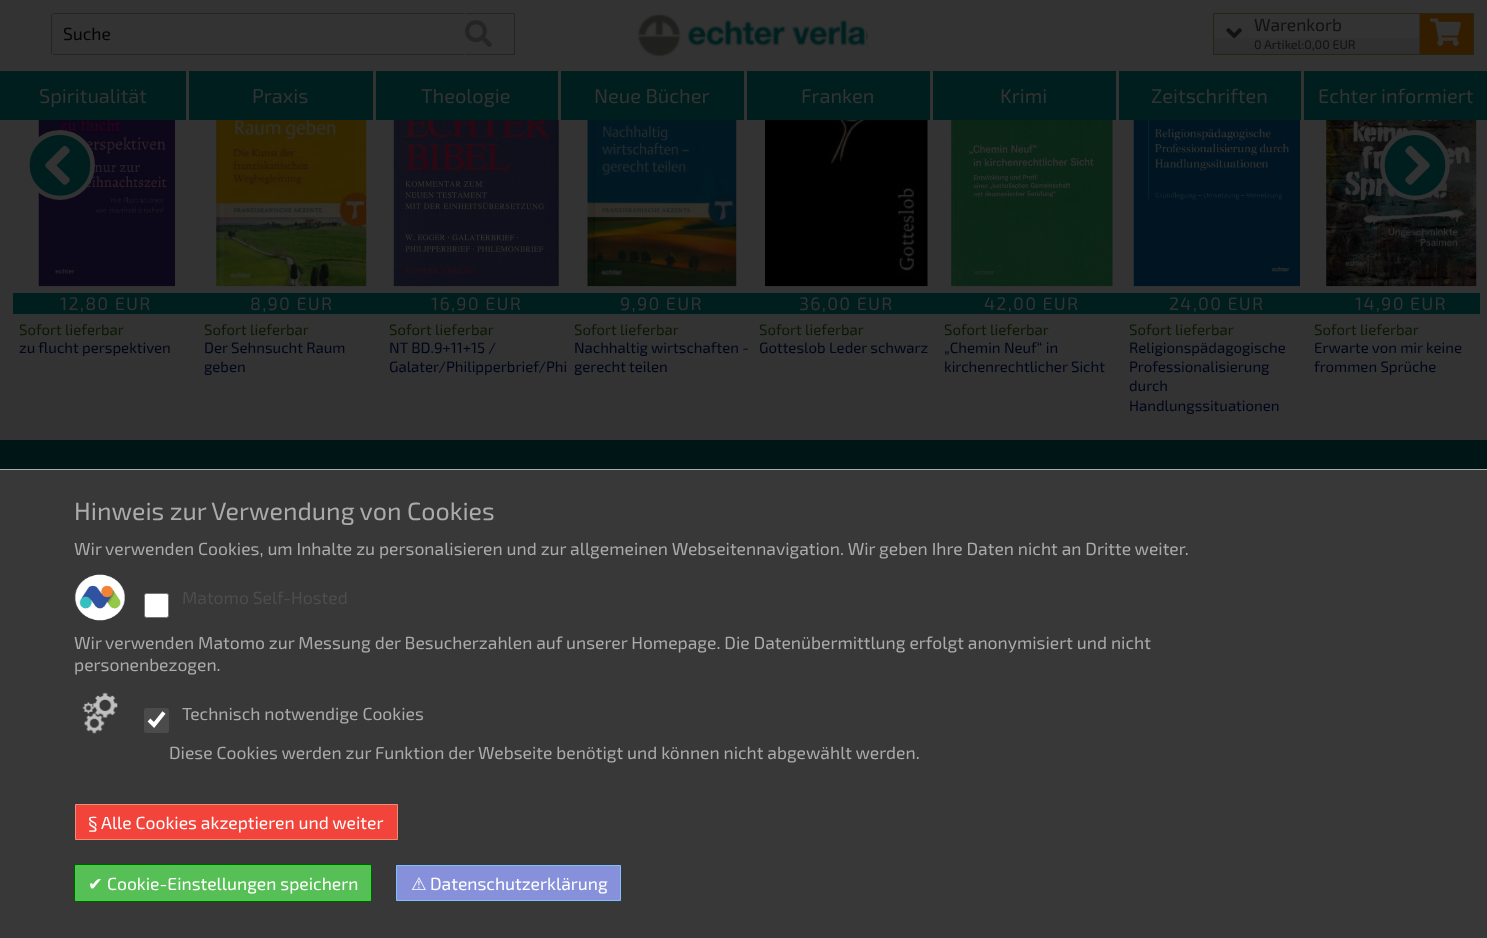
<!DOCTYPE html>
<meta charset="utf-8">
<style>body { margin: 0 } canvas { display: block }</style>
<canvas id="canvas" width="1487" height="938"></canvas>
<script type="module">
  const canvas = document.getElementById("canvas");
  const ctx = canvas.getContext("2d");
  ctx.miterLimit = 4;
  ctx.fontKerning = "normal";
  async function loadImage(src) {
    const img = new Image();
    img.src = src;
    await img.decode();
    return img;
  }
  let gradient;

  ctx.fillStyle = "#001515";
  ctx.fillRect(0, 0, 1487, 938);
  ctx.fillStyle = "#333333";
  ctx.fillRect(0, 0, 1487, 68);
  ctx.fillStyle = "#242424";
  ctx.fillRect(53, 13, 411, 1);
  ctx.fillRect(53, 54, 411, 1);
  ctx.fillRect(51, 14, 1, 40);
  ctx.font = "17.5px 'Exo 2'";
  ctx.fillStyle = "#050505";
  ctx.fillText("Suche", 63, 40);
  ctx.fillStyle = "#242424";
  ctx.fillRect(465, 13, 50, 1);
  ctx.fillRect(514, 13, 1, 42);
  ctx.fillRect(465, 54, 50, 1);
  ctx.drawImage(await loadImage("img1.png"), 465, 20, 27, 28);
  ctx.drawImage(await loadImage("img2.png"), 637, 14, 231, 43);
  gradient = ctx.createLinearGradient(1316, 14, 1316, 54);
  gradient.addColorStop(0, "#333333");
  gradient.addColorStop(0.47, "#313131");
  gradient.addColorStop(1, "#2f2f2f");
  ctx.fillStyle = gradient;
  ctx.fillRect(1214, 38, 205, 16);
  ctx.fillStyle = "#222415";
  ctx.fillRect(1213, 13, 261, 1);
  ctx.fillRect(1213, 54, 206, 1);
  ctx.fillRect(1213, 13, 1, 42);
  ctx.fillStyle = "#111111";
  ctx.fillText("Warenkorb", 1254, 31);
  ctx.drawImage(await loadImage("img3.png"), 1226, 28, 16, 11);
  ctx.font = "12.5px 'Exo 2'";
  ctx.fillText("0 Artikel:0,00 EUR", 1254, 49);
  ctx.fillStyle = "#331d00";
  ctx.fillRect(1420, 14, 53, 40);
  ctx.fillStyle = "#222415";
  ctx.fillRect(1473, 13, 1, 42);
  ctx.fillRect(1419, 54, 55, 1);
  ctx.fillStyle = "#292929";
  ctx.fillRect(1419, 13, 1, 42);
  ctx.drawImage(await loadImage("img4.png"), 1430, 18, 31, 28);
  ctx.fillStyle = "#001e1e";
  ctx.fillRect(0, 71, 186, 49);
  ctx.fillStyle = "#333333";
  ctx.fillRect(0, 68, 1487, 3);
  ctx.font = "20px 'Exo 2'";
  ctx.fillText("Spiritualität", 39, 103);
  ctx.fillStyle = "#001e1e";
  ctx.fillRect(189, 71, 184, 49);
  ctx.fillStyle = "#333333";
  ctx.fillRect(186, 68, 3, 52);
  ctx.fillText("Praxis", 252, 103);
  ctx.fillStyle = "#001e1e";
  ctx.fillRect(376, 71, 182, 49);
  ctx.fillStyle = "#333333";
  ctx.fillRect(373, 68, 3, 52);
  ctx.fillText("Theologie", 421, 103);
  ctx.fillStyle = "#001e1e";
  ctx.fillRect(561, 71, 183, 49);
  ctx.fillStyle = "#333333";
  ctx.fillRect(558, 68, 3, 52);
  ctx.fillText("Neue Bücher", 594, 103);
  ctx.fillStyle = "#001e1e";
  ctx.fillRect(747, 71, 183, 49);
  ctx.fillStyle = "#333333";
  ctx.fillRect(744, 68, 3, 52);
  ctx.fillText("Franken", 801, 103);
  ctx.fillStyle = "#001e1e";
  ctx.fillRect(933, 71, 183, 49);
  ctx.fillStyle = "#333333";
  ctx.fillRect(930, 68, 3, 52);
  ctx.fillText("Krimi", 1000, 103);
  ctx.fillStyle = "#001e1e";
  ctx.fillRect(1119, 71, 182, 49);
  ctx.fillStyle = "#333333";
  ctx.fillRect(1116, 68, 3, 52);
  ctx.fillText("Zeitschriften", 1151, 103);
  ctx.fillStyle = "#001e1e";
  ctx.fillRect(1304, 71, 183, 49);
  ctx.fillStyle = "#333333";
  ctx.fillRect(1301, 68, 3, 52);
  ctx.fillText("Echter informiert", 1318, 103);
  ctx.fillRect(0, 120, 1487, 320);
  ctx.drawImage(await loadImage("img7.png"), 38, 120, 137, 167);
  ctx.beginPath();
  ctx.arc(60, 165, 33, 0, Math.PI * 2);
  ctx.fill();
  ctx.strokeStyle = "#333333";
  ctx.lineWidth = 4;
  ctx.stroke();
  ctx.drawImage(await loadImage("img5.png"), 29, 135, 62, 61);
  ctx.drawImage(await loadImage("img14.png"), 1326, 120, 151, 167);
  ctx.beginPath();
  ctx.arc(1415, 165, 33, 0, Math.PI * 2);
  ctx.fill();
  ctx.stroke();
  ctx.drawImage(await loadImage("img6.png"), 1384, 135, 62, 61);
  ctx.fillStyle = "#001e1e";
  ctx.fillRect(13, 293, 1467, 21);
  ctx.letterSpacing = "1.25px";
  ctx.font = "18px 'Exo 2'";
  ctx.fillStyle = "#333333";
  ctx.fillText("12,80 EUR", 60, 310);
  ctx.letterSpacing = "0px";
  ctx.font = "15px 'Exo 2'";
  ctx.fillStyle = "#0c1902";
  ctx.fillText("Sofort lieferbar", 19, 335);
  ctx.fillStyle = "#00061a";
  ctx.fillText("zu flucht perspektiven", 19, 353);
  ctx.drawImage(await loadImage("img8.png"), 216, 120, 151, 167);
  ctx.letterSpacing = "1.25px";
  ctx.font = "18px 'Exo 2'";
  ctx.fillStyle = "#333333";
  ctx.fillText("8,90 EUR", 250, 310);
  ctx.letterSpacing = "0px";
  ctx.font = "15px 'Exo 2'";
  ctx.fillStyle = "#0c1902";
  ctx.fillText("Sofort lieferbar", 204, 335);
  ctx.fillStyle = "#00061a";
  ctx.fillText("Der Sehnsucht Raum", 204, 353);
  ctx.fillText("geben", 204, 372);
  ctx.drawImage(await loadImage("img9.png"), 393, 120, 166, 167);
  ctx.letterSpacing = "1.25px";
  ctx.font = "18px 'Exo 2'";
  ctx.fillStyle = "#333333";
  ctx.fillText("16,90 EUR", 431, 310);
  ctx.letterSpacing = "0px";
  ctx.font = "15px 'Exo 2'";
  ctx.fillStyle = "#0c1902";
  ctx.fillText("Sofort lieferbar", 389, 335);
  ctx.fillStyle = "#00061a";
  ctx.fillText("NT BD.9+11+15 /", 389, 353);
  ctx.fillText("Galater/Philipperbrief/Phi", 389, 372);
  ctx.drawImage(await loadImage("img10.png"), 587, 120, 150, 167);
  ctx.letterSpacing = "1.25px";
  ctx.font = "18px 'Exo 2'";
  ctx.fillStyle = "#333333";
  ctx.fillText("9,90 EUR", 620, 310);
  ctx.letterSpacing = "0px";
  ctx.font = "15px 'Exo 2'";
  ctx.fillStyle = "#0c1902";
  ctx.fillText("Sofort lieferbar", 574, 335);
  ctx.fillStyle = "#00061a";
  ctx.fillText("Nachhaltig wirtschaften -", 574, 353);
  ctx.fillText("gerecht teilen", 574, 372);
  ctx.drawImage(await loadImage("img11.png"), 765, 120, 163, 167);
  ctx.letterSpacing = "1.25px";
  ctx.font = "18px 'Exo 2'";
  ctx.fillStyle = "#333333";
  ctx.fillText("36,00 EUR", 799, 310);
  ctx.letterSpacing = "0px";
  ctx.font = "15px 'Exo 2'";
  ctx.fillStyle = "#0c1902";
  ctx.fillText("Sofort lieferbar", 759, 335);
  ctx.fillStyle = "#00061a";
  ctx.fillText("Gotteslob Leder schwarz", 759, 353);
  ctx.drawImage(await loadImage("img12.png"), 951, 120, 162, 167);
  ctx.letterSpacing = "1.25px";
  ctx.font = "18px 'Exo 2'";
  ctx.fillStyle = "#333333";
  ctx.fillText("42,00 EUR", 984, 310);
  ctx.letterSpacing = "0px";
  ctx.font = "15px 'Exo 2'";
  ctx.fillStyle = "#0c1902";
  ctx.fillText("Sofort lieferbar", 944, 335);
  ctx.fillStyle = "#00061a";
  ctx.fillText("„Chemin Neuf“ in", 944, 353);
  ctx.fillText("kirchenrechtlicher Sicht", 944, 372);
  ctx.drawImage(await loadImage("img13.png"), 1133, 120, 167, 167);
  ctx.letterSpacing = "1.25px";
  ctx.font = "18px 'Exo 2'";
  ctx.fillStyle = "#333333";
  ctx.fillText("24,00 EUR", 1169, 310);
  ctx.letterSpacing = "0px";
  ctx.font = "15px 'Exo 2'";
  ctx.fillStyle = "#0c1902";
  ctx.fillText("Sofort lieferbar", 1129, 335);
  ctx.fillStyle = "#00061a";
  ctx.fillText("Religionspädagogische", 1129, 353);
  ctx.fillText("Professionalisierung", 1129, 372);
  ctx.fillText("durch", 1129, 391);
  ctx.fillText("Handlungssituationen", 1129, 411);
  ctx.letterSpacing = "1.25px";
  ctx.font = "18px 'Exo 2'";
  ctx.fillStyle = "#333333";
  ctx.fillText("14,90 EUR", 1355, 310);
  ctx.letterSpacing = "0px";
  ctx.font = "15px 'Exo 2'";
  ctx.fillStyle = "#0c1902";
  ctx.fillText("Sofort lieferbar", 1314, 335);
  ctx.fillStyle = "#00061a";
  ctx.fillText("Erwarte von mir keine", 1314, 353);
  ctx.fillText("frommen Sprüche", 1314, 372);
  ctx.fillStyle = "#383838";
  ctx.fillRect(0, 470, 1487, 468);
  ctx.fillStyle = "#ababab";
  ctx.fillRect(0, 469, 1487, 1);
  ctx.font = "25px 'Exo 2'";
  ctx.fillText("Hinweis zur Verwendung von Cookies", 74, 520);
  ctx.font = "17.5px 'Exo 2'";
  ctx.fillText("Wir verwenden Cookies, um Inhalte zu personalisieren und zur allgemeinen Webseitennavigation. Wir geben Ihre Daten nicht an Dritte weiter.", 74, 555);
  ctx.drawImage(await loadImage("img15.png"), 74, 574, 51, 47);
  ctx.fillStyle = "#ffffff";
  ctx.beginPath();
  ctx.roundRect(144.5, 593.5, 24, 24, 2);
  ctx.fill();
  ctx.strokeStyle = "#767676";
  ctx.lineWidth = 1;
  ctx.stroke();
  ctx.fillStyle = "#4d4d4d";
  ctx.fillText("Matomo Self-Hosted", 182, 604);
  ctx.fillStyle = "#ababab";
  ctx.fillText("Wir verwenden Matomo zur Messung der Besucherzahlen auf unserer Homepage. Die Datenübermittlung erfolgt anonymisiert und nicht", 74, 649);
  ctx.fillText("personenbezogen.", 74, 671);
  ctx.drawImage(await loadImage("img16.png"), 82, 692, 36, 42);
  ctx.fillStyle = "#4b4b4b";
  ctx.beginPath();
  ctx.roundRect(144, 708, 25, 25, 2.5);
  ctx.fill();
  ctx.beginPath();
  ctx.moveTo(149, 720);
  ctx.lineTo(154, 725);
  ctx.lineTo(164, 712.5);
  ctx.strokeStyle = "#ffffff";
  ctx.lineWidth = 4;
  ctx.stroke();
  ctx.fillStyle = "#ababab";
  ctx.fillText("Technisch notwendige Cookies", 182, 720);
  ctx.fillText("Diese Cookies werden zur Funktion der Webseite benötigt und können nicht abgewählt werden.", 169, 759);
  ctx.fillStyle = "#f2443b";
  ctx.beginPath();
  ctx.rect(75.5, 804.5, 322, 35);
  ctx.fill();
  ctx.strokeStyle = "#f08c75";
  ctx.lineWidth = 1;
  ctx.stroke();
  ctx.fillStyle = "#ffffff";
  ctx.fillText("§ Alle Cookies akzeptieren und weiter", 88, 829);
  ctx.fillStyle = "#56bf56";
  ctx.beginPath();
  ctx.rect(75.5, 865.5, 295, 35);
  ctx.fill();
  ctx.strokeStyle = "#00ff00";
  ctx.stroke();
  ctx.font = "17.5px DejaVu Sans";
  ctx.fillStyle = "#ffffff";
  ctx.fillText("✔", 88, 890);
  ctx.font = "17.5px 'Exo 2'";
  ctx.fillText("Cookie-Einstellungen speichern", 107, 890);
  ctx.fillStyle = "#8690db";
  ctx.beginPath();
  ctx.rect(396.5, 865.5, 224, 35);
  ctx.fill();
  ctx.strokeStyle = "#7fc1fb";
  ctx.stroke();
  ctx.font = "17.5px DejaVu Sans";
  ctx.fillStyle = "#ffffff";
  ctx.fillText("⚠", 411, 890);
  ctx.font = "17.5px 'Exo 2'";
  ctx.fillText("Datenschutzerklärung", 430, 890);
</script>
